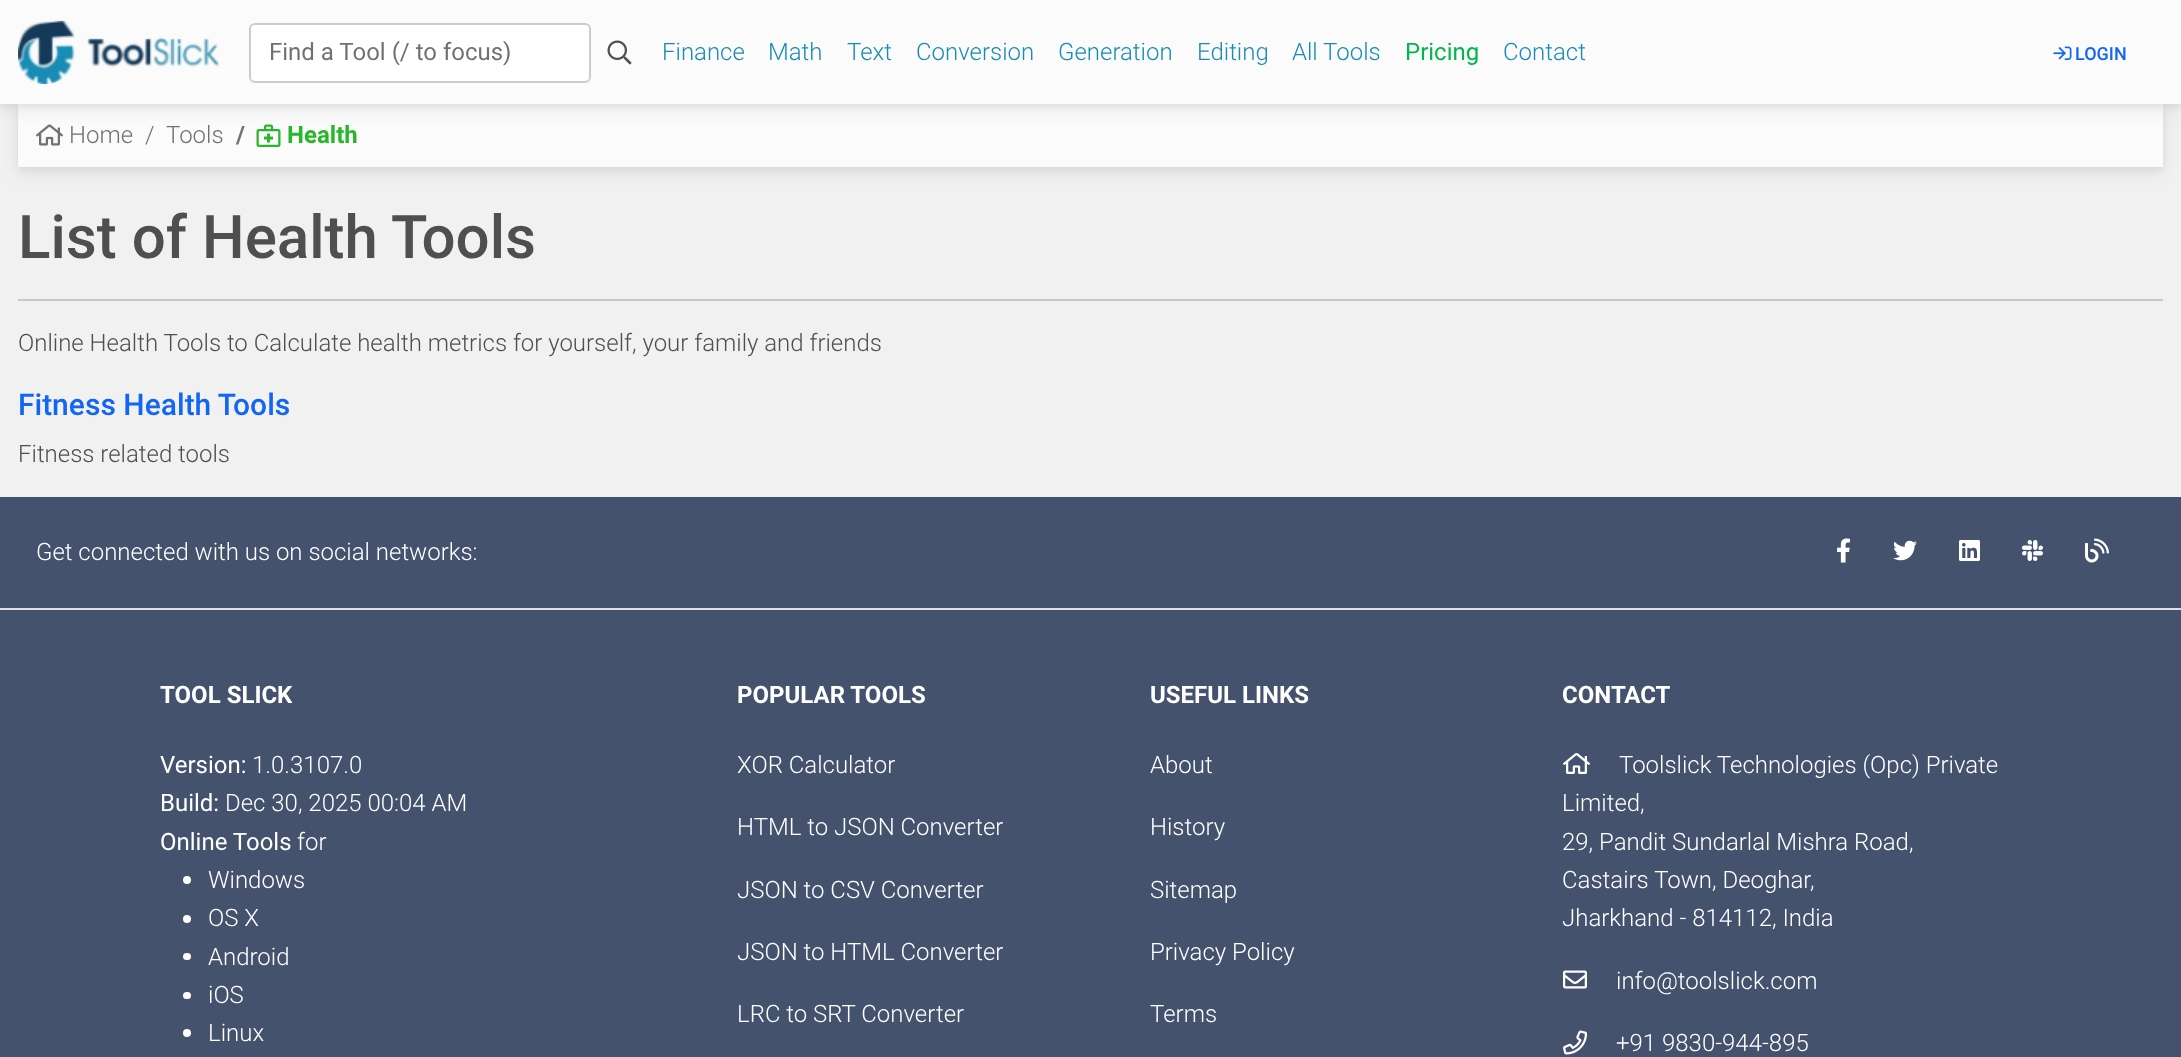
<!DOCTYPE html>
<meta charset="utf-8">
<style>body { margin: 0 } canvas { display: block }</style>
<canvas id="canvas" width="2181" height="1057"></canvas>
<script type="module">
  const canvas = document.getElementById("canvas");
  const ctx = canvas.getContext("2d");
  ctx.miterLimit = 4;
  ctx.fontKerning = "normal";
  async function loadImage(src) {
    const img = new Image();
    img.src = src;
    await img.decode();
    return img;
  }

  ctx.fillStyle = "#f1f1f1";
  ctx.fillRect(0, 0, 2181, 1057);
  ctx.fillStyle = "rgba(0, 0, 0, 0.05)";
  ctx.filter = "blur(3px)";
  ctx.beginPath();
  ctx.rect(18, 107, 2145, 63);
  ctx.fill();
  ctx.filter = "none";
  ctx.fillStyle = "rgba(0, 0, 0, 0.07)";
  ctx.filter = "blur(9px)";
  ctx.beginPath();
  ctx.rect(18, 110, 2145, 63);
  ctx.fill();
  ctx.filter = "none";
  ctx.fillStyle = "#fbfbfb";
  ctx.fillRect(18, 104, 2145, 63);
  ctx.fillStyle = "rgba(0, 0, 0, 0.05)";
  ctx.filter = "blur(3px)";
  ctx.beginPath();
  ctx.rect(0, 3, 2181, 104);
  ctx.fill();
  ctx.filter = "none";
  ctx.drawImage(await loadImage("img4.png"), 36, 124, 27, 22);
  ctx.drawImage(await loadImage("img5.png"), 256, 124, 25, 23);
  ctx.fillStyle = "rgba(0, 0, 0, 0.07)";
  ctx.filter = "blur(9px)";
  ctx.beginPath();
  ctx.rect(0, 6, 2181, 104);
  ctx.fill();
  ctx.filter = "none";
  ctx.fillStyle = "#fbfbfb";
  ctx.fillRect(0, 0, 2181, 104);
  ctx.drawImage(await loadImage("img1.png"), 18, 20, 201, 64);
  ctx.fillStyle = "#ffffff";
  ctx.beginPath();
  ctx.roundRect(250, 24, 340, 58, 5);
  ctx.fill();
  ctx.strokeStyle = "#cccccc";
  ctx.lineWidth = 2;
  ctx.stroke();
  ctx.font = "24px Roboto";
  ctx.fillStyle = "#717171";
  ctx.fillText("Find a Tool (/ to focus)", 269, 60);
  ctx.drawImage(await loadImage("img2.png"), 607, 40, 25, 25);
  ctx.font = "300 24px Roboto";
  ctx.fillStyle = "#188cb4";
  ctx.fillText("Finance", 662, 60);
  ctx.fillText("Math", 768, 60);
  ctx.fillText("Text", 847, 60);
  ctx.fillText("Conversion", 916, 60);
  ctx.fillText("Generation", 1058, 60);
  ctx.fillText("Editing", 1197, 60);
  ctx.fillText("All Tools", 1292, 60);
  ctx.font = "24px Roboto";
  ctx.fillStyle = "#00b74a";
  ctx.fillText("Pricing", 1405, 60);
  ctx.font = "300 24px Roboto";
  ctx.fillStyle = "#188cb4";
  ctx.fillText("Contact", 1503, 60);
  ctx.drawImage(await loadImage("img3.png"), 2053, 46, 19, 14);
  ctx.font = "500 18px Roboto";
  ctx.fillStyle = "#1266f1";
  ctx.fillText("LOGIN", 2075, 60);
  ctx.font = "300 24px Roboto";
  ctx.fillStyle = "#717171";
  ctx.fillText("Home", 69, 143);
  ctx.fillText("/", 145, 143);
  ctx.fillText("Tools", 166, 143);
  ctx.font = "bold 24px Roboto";
  ctx.fillText("/", 236, 143);
  ctx.fillStyle = "#28b62c";
  ctx.fillText("Health", 287, 143);
  ctx.font = "500 60px Roboto";
  ctx.fillStyle = "#4f4f4f";
  ctx.fillText("List of Health Tools", 18, 258);
  ctx.fillStyle = "#c9c9c9";
  ctx.fillRect(18, 299, 2145, 2);
  ctx.font = "300 24px Roboto";
  ctx.fillStyle = "#4f4f4f";
  ctx.fillText("Online Health Tools to Calculate health metrics for yourself, your family and friends", 18, 351);
  ctx.font = "500 30px Roboto";
  ctx.fillStyle = "#1266f1";
  ctx.fillText("Fitness Health Tools", 18, 415);
  ctx.font = "300 24px Roboto";
  ctx.fillStyle = "#4f4f4f";
  ctx.fillText("Fitness related tools", 18, 462);
  ctx.fillStyle = "#45526e";
  ctx.fillRect(0, 497, 2181, 560);
  ctx.fillStyle = "#e0e0e0";
  ctx.fillRect(0, 608, 2181, 2);
  ctx.fillStyle = "#ffffff";
  ctx.fillText("Get connected with us on social networks:", 36, 560);
  ctx.drawImage(await loadImage("img6.png"), 1837, 538, 13, 25);
  ctx.drawImage(await loadImage("img7.png"), 1893, 540, 24, 21);
  ctx.drawImage(await loadImage("img8.png"), 1959, 540, 21, 21);
  ctx.drawImage(await loadImage("img9.png"), 2022, 540, 21, 21);
  ctx.drawImage(await loadImage("img10.png"), 2085, 538, 24, 25);
  ctx.font = "bold 24px Roboto";
  ctx.fillText("TOOL SLICK", 160, 703);
  ctx.font = "24px Roboto";
  ctx.fillText("Version:", 160, 773);
  ctx.font = "300 24px Roboto";
  ctx.fillText("1.0.3107.0", 252, 773);
  ctx.font = "24px Roboto";
  ctx.fillText("Build:", 160, 811);
  ctx.font = "300 24px Roboto";
  ctx.fillText("Dec 30, 2025 00:04 AM", 225, 811);
  ctx.font = "24px Roboto";
  ctx.fillText("Online Tools", 160, 850);
  ctx.font = "300 24px Roboto";
  ctx.fillText("for", 297, 850);
  ctx.beginPath();
  ctx.arc(187, 880, 4, 0, Math.PI * 2);
  ctx.fill();
  ctx.fillText("Windows", 208, 888);
  ctx.beginPath();
  ctx.arc(187, 919, 4, 0, Math.PI * 2);
  ctx.fill();
  ctx.fillText("OS X", 208, 926);
  ctx.beginPath();
  ctx.roundRect(183, 953, 8, 7, 3.5);
  ctx.fill();
  ctx.fillText("Android", 208, 965);
  ctx.beginPath();
  ctx.roundRect(183, 992, 8, 7, 3.5);
  ctx.fill();
  ctx.fillText("iOS", 208, 1003);
  ctx.beginPath();
  ctx.arc(187, 1033, 4, 0, Math.PI * 2);
  ctx.fill();
  ctx.fillText("Linux", 208, 1041);
  ctx.font = "bold 24px Roboto";
  ctx.fillText("POPULAR TOOLS", 737, 703);
  ctx.font = "300 24px Roboto";
  ctx.fillText("XOR Calculator", 737, 773);
  ctx.fillText("HTML to JSON Converter", 737, 835);
  ctx.fillText("JSON to CSV Converter", 737, 898);
  ctx.fillText("JSON to HTML Converter", 737, 960);
  ctx.fillText("LRC to SRT Converter", 737, 1022);
  ctx.font = "bold 24px Roboto";
  ctx.fillText("USEFUL LINKS", 1150, 703);
  ctx.font = "300 24px Roboto";
  ctx.fillText("About", 1150, 773);
  ctx.fillText("History", 1150, 835);
  ctx.fillText("Sitemap", 1150, 898);
  ctx.fillText("Privacy Policy", 1150, 960);
  ctx.fillText("Terms", 1150, 1022);
  ctx.font = "bold 24px Roboto";
  ctx.fillText("CONTACT", 1562, 703);
  ctx.drawImage(await loadImage("img11.png"), 1563, 753, 27, 21);
  ctx.font = "300 24px Roboto";
  ctx.fillText("Toolslick Technologies (Opc) Private", 1619, 773);
  ctx.fillText("Limited,", 1562, 811);
  ctx.fillText("29, Pandit Sundarlal Mishra Road,", 1562, 850);
  ctx.fillText("Castairs Town, Deoghar,", 1562, 888);
  ctx.fillText("Jharkhand - 814112, India", 1562, 926);
  ctx.drawImage(await loadImage("img12.png"), 1563, 970, 24, 19);
  ctx.fillText("info@toolslick.com", 1616, 989);
  ctx.drawImage(await loadImage("img13.png"), 1563, 1030, 24, 25);
  ctx.fillText("+91 9830-944-895", 1616, 1051);
</script>
